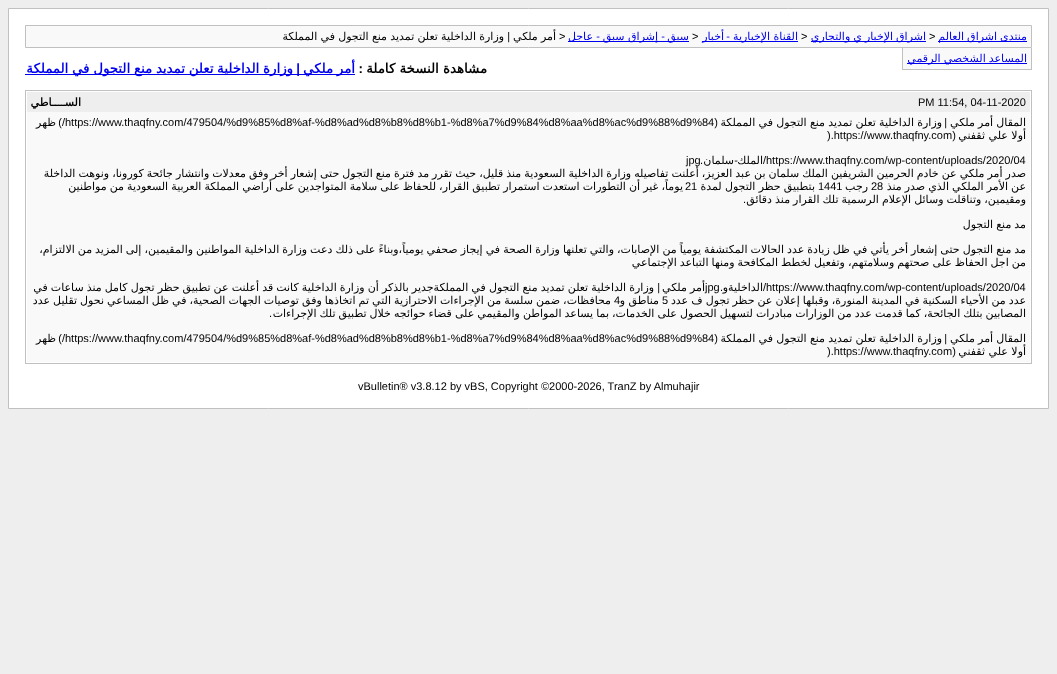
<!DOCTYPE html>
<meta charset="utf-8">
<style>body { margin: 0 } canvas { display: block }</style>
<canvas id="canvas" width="1057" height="674"></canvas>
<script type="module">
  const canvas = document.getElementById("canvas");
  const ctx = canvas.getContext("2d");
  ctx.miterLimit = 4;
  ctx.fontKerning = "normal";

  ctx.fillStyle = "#eeeeee";
  ctx.fillRect(0, 0, 1057, 674);
  ctx.fillStyle = "#ffffff";
  ctx.beginPath();
  ctx.rect(8.5, 8.5, 1040, 400);
  ctx.fill();
  ctx.strokeStyle = "#c0c0c0";
  ctx.stroke();
  ctx.fillStyle = "#f9f9f9";
  ctx.beginPath();
  ctx.rect(25.5, 25.5, 1006, 22);
  ctx.fill();
  ctx.stroke();
  ctx.fillStyle = "#0000ee";
  ctx.fillRect(938, 41, 89, 1);
  ctx.wordSpacing = "-0.45px";
  ctx.direction = "rtl";
  ctx.font = "11px DejaVu Sans";
  ctx.fillText("منتدى اشراق العالم", 1027, 40);
  ctx.wordSpacing = "0px";
  ctx.direction = "ltr";
  ctx.font = "11px Liberation Sans";
  ctx.fillStyle = "#000000";
  ctx.fillText(">", 929, 40);
  ctx.fillStyle = "#0000ee";
  ctx.fillRect(811, 41, 115, 1);
  ctx.wordSpacing = "-0.45px";
  ctx.direction = "rtl";
  ctx.font = "11px DejaVu Sans";
  ctx.fillText("اشراق الإخبار ي والتجاري", 926, 40);
  ctx.wordSpacing = "0px";
  ctx.direction = "ltr";
  ctx.font = "11px Liberation Sans";
  ctx.fillStyle = "#000000";
  ctx.fillText(">", 801, 40);
  ctx.fillStyle = "#0000ee";
  ctx.fillRect(702, 41, 96, 1);
  ctx.direction = "rtl";
  ctx.font = "11px DejaVu Sans";
  ctx.fillText("القناة الإخبارية", 798, 40);
  ctx.font = "11px Liberation Sans";
  ctx.fillText("-", 730, 40);
  ctx.font = "11px DejaVu Sans";
  ctx.fillText("أخبار", 724, 40);
  ctx.direction = "ltr";
  ctx.font = "11px Liberation Sans";
  ctx.fillStyle = "#000000";
  ctx.fillText(">", 692, 40);
  ctx.fillStyle = "#0000ee";
  ctx.fillRect(568, 41, 121, 1);
  ctx.direction = "rtl";
  ctx.font = "11px DejaVu Sans";
  ctx.fillText("سبق", 689, 40);
  ctx.font = "11px Liberation Sans";
  ctx.fillText("-", 665, 40);
  ctx.font = "11px DejaVu Sans";
  ctx.fillText("إشراق سبق", 658, 40);
  ctx.font = "11px Liberation Sans";
  ctx.fillText("-", 600, 40);
  ctx.font = "11px DejaVu Sans";
  ctx.fillText("عاجل", 593, 40);
  ctx.direction = "ltr";
  ctx.font = "11px Liberation Sans";
  ctx.fillStyle = "#000000";
  ctx.fillText(">", 559, 40);
  ctx.wordSpacing = "-0.25px";
  ctx.direction = "rtl";
  ctx.font = "11px DejaVu Sans";
  ctx.fillText("أمر ملكي", 556, 40);
  ctx.wordSpacing = "0px";
  ctx.font = "11px Liberation Sans";
  ctx.fillText("|", 510, 40);
  ctx.wordSpacing = "-0.25px";
  ctx.font = "11px DejaVu Sans";
  ctx.fillText("وزارة الداخلية تعلن تمديد منع التجول في المملكة", 504, 40);
  ctx.fillStyle = "#f9f9f9";
  ctx.fillRect(903, 48, 128, 21);
  ctx.fillStyle = "#c0c0c0";
  ctx.fillRect(1031, 48, 1, 22);
  ctx.fillRect(902, 69, 130, 1);
  ctx.fillRect(902, 48, 1, 22);
  ctx.fillStyle = "#0000ee";
  ctx.fillRect(907, 63, 120, 1);
  ctx.wordSpacing = "-0.45px";
  ctx.fillText("المساعد الشخصي الرقمي", 1027, 62);
  ctx.wordSpacing = "0px";
  ctx.font = "bold 13.3px DejaVu Sans";
  ctx.fillStyle = "#000000";
  ctx.fillText("مشاهدة النسخة كاملة", 487, 73);
  ctx.font = "bold 13.3px Liberation Sans";
  ctx.fillText(":", 363, 73);
  ctx.fillStyle = "#0000ee";
  ctx.fillRect(25, 74, 330, 1);
  ctx.wordSpacing = "-0.45px";
  ctx.font = "bold 13.3px DejaVu Sans";
  ctx.fillText("أمر ملكي", 355, 73);
  ctx.wordSpacing = "0px";
  ctx.font = "bold 13.3px Liberation Sans";
  ctx.fillText("|", 300, 73);
  ctx.wordSpacing = "-0.45px";
  ctx.font = "bold 13.3px DejaVu Sans";
  ctx.fillText("وزارة الداخلية تعلن تمديد منع التجول في المملكة", 293, 73);
  ctx.strokeRect(25.5, 90.5, 1006, 273);
  ctx.fillStyle = "#eeeeee";
  ctx.fillRect(27, 92, 1003, 20);
  ctx.wordSpacing = "0px";
  ctx.direction = "ltr";
  ctx.font = "11px Liberation Sans";
  ctx.fillStyle = "#000000";
  ctx.fillText("PM 11:54, 04-11-2020", 918, 106);
  ctx.direction = "rtl";
  ctx.font = "bold 11px DejaVu Sans";
  ctx.fillText("الســــاطي", 81, 106);
  ctx.fillStyle = "#f9f9f9";
  ctx.fillRect(27, 112, 1003, 250);
  ctx.wordSpacing = "-0.25px";
  ctx.font = "11px DejaVu Sans";
  ctx.fillStyle = "#000000";
  ctx.fillText("المقال أمر ملكي", 1026, 126);
  ctx.wordSpacing = "0px";
  ctx.font = "11px Liberation Sans";
  ctx.fillText("|", 947, 126);
  ctx.wordSpacing = "-0.25px";
  ctx.font = "11px DejaVu Sans";
  ctx.fillText("وزارة الداخلية تعلن تمديد منع التجول في المملكة", 942, 126);
  ctx.wordSpacing = "0px";
  ctx.font = "11px Liberation Sans";
  ctx.fillText("(", 718, 126);
  ctx.direction = "ltr";
  ctx.fillText("https://www.thaqfny.com/479504/%d9%85%d8%af-%d8%ad%d8%b8%d8%b1-%d8%a7%d9%84%d8%aa%d8%ac%d9%88%d9%84", 65, 126);
  ctx.direction = "rtl";
  ctx.fillText("/)", 65, 126);
  ctx.font = "11px DejaVu Sans";
  ctx.fillText("ظهر", 56, 126);
  ctx.fillText("أولا علي ثقفني", 1026, 139);
  ctx.font = "11px Liberation Sans";
  ctx.fillText("(", 956, 139);
  ctx.direction = "ltr";
  ctx.fillText(").https://www.thaqfny.com", 827, 139);
  ctx.fillText("https://www.thaqfny.com/wp-content/uploads/2020/04", 766, 164);
  ctx.direction = "rtl";
  ctx.fillText("/", 766, 164);
  ctx.font = "11px DejaVu Sans";
  ctx.fillText("الملك", 763, 164);
  ctx.font = "11px Liberation Sans";
  ctx.fillText("-", 738, 164);
  ctx.font = "11px DejaVu Sans";
  ctx.fillText("سلمان", 734, 164);
  ctx.direction = "ltr";
  ctx.font = "11px Liberation Sans";
  ctx.fillText("jpg", 686, 164);
  ctx.direction = "rtl";
  ctx.fillText(".", 703, 164);
  ctx.wordSpacing = "-0.45px";
  ctx.font = "11px DejaVu Sans";
  ctx.fillText("صدر أمر ملكي عن خادم الحرمين الشريفين الملك سلمان بن عبد العزيز، أعلنت تفاصيله وزارة الداخلية السعودية منذ قليل، حيث تقرر مد فترة منع التجول حتى إشعار أخر وفق معدلات وانتشار جائحة كورونا، ونوهت الداخلة", 1026, 177);
  ctx.fillText("عن الأمر الملكي الذي صدر منذ", 1026, 190);
  ctx.wordSpacing = "0px";
  ctx.direction = "ltr";
  ctx.font = "11px Liberation Sans";
  ctx.fillText("28", 871, 190);
  ctx.direction = "rtl";
  ctx.font = "11px DejaVu Sans";
  ctx.fillText("رجب", 868, 190);
  ctx.direction = "ltr";
  ctx.font = "11px Liberation Sans";
  ctx.fillText("1441", 818, 190);
  ctx.wordSpacing = "-0.25px";
  ctx.direction = "rtl";
  ctx.font = "11px DejaVu Sans";
  ctx.fillText("بتطبيق حظر التجول لمدة", 815, 190);
  ctx.wordSpacing = "-0.4px";
  ctx.fillText("يوماً، غير أن التطورات استعدت استمرار تطبيق القرار، للحفاظ على سلامة المتواجدين على أراضي المملكة العربية السعودية من مواطنين", 683, 190);
  ctx.wordSpacing = "0px";
  ctx.direction = "ltr";
  ctx.font = "11px Liberation Sans";
  ctx.fillText("21", 685, 190);
  ctx.wordSpacing = "-0.45px";
  ctx.direction = "rtl";
  ctx.font = "11px DejaVu Sans";
  ctx.fillText("ومقيمين، وتناقلت وسائل الإعلام الرسمية تلك القرار منذ دقائق", 1026, 203);
  ctx.wordSpacing = "0px";
  ctx.font = "11px Liberation Sans";
  ctx.fillText(".", 746, 203);
  ctx.wordSpacing = "-0.45px";
  ctx.font = "11px DejaVu Sans";
  ctx.fillText("مد منع التجول", 1026, 228);
  ctx.fillText("مد منع التجول حتى إشعار أخر يأتي في ظل زيادة عدد الحالات المكتشفة يومياً من الإصابات، والتي تعلنها وزارة الصحة في إيجاز صحفي يومياً،وبناءً على ذلك دعت وزارة الداخلية المواطنين والمقيمين، إلى المزيد من الالتزام،", 1026, 253);
  ctx.fillText("من اجل الحفاظ على صحتهم وسلامتهم، وتفعيل لخطط المكافحة ومنها التباعد الإجتماعي", 1026, 266);
  ctx.wordSpacing = "0px";
  ctx.font = "11px Liberation Sans";
  ctx.fillText(".", 723, 291);
  ctx.font = "11px DejaVu Sans";
  ctx.fillText("الداخليةو", 763, 291);
  ctx.wordSpacing = "-0.4px";
  ctx.fillText("أمر ملكي", 705, 291);
  ctx.fillText("وزارة الداخلية تعلن تمديد منع التجول في المملكةجدير بالذكر أن وزارة الداخلية كانت قد أعلنت عن تطبيق حظر تجول كامل منذ ساعات في", 654, 291);
  ctx.wordSpacing = "0px";
  ctx.direction = "ltr";
  ctx.font = "11px Liberation Sans";
  ctx.fillText("https://www.thaqfny.com/wp-content/uploads/2020/04", 766, 291);
  ctx.direction = "rtl";
  ctx.fillText("/", 766, 291);
  ctx.direction = "ltr";
  ctx.fillText("jpg", 705, 291);
  ctx.direction = "rtl";
  ctx.fillText("|", 660, 291);
  ctx.wordSpacing = "-0.45px";
  ctx.font = "11px DejaVu Sans";
  ctx.fillText("عدد من الأحياء السكنية في المدينة المنورة، وقبلها إعلان عن حظر تجول ف عدد", 1026, 304);
  ctx.wordSpacing = "-0.4px";
  ctx.fillText("محافظات، ضمن سلسة من الإجراءات الاحترازية التي تم اتخاذها وفق توصيات الجهات الصحية، في ظل المساعي نحول تقليل عدد", 611, 304);
  ctx.wordSpacing = "0px";
  ctx.direction = "ltr";
  ctx.font = "11px Liberation Sans";
  ctx.fillText("4", 614, 304);
  ctx.direction = "rtl";
  ctx.font = "11px DejaVu Sans";
  ctx.fillText("مناطق و", 659, 304);
  ctx.direction = "ltr";
  ctx.font = "11px Liberation Sans";
  ctx.fillText("5", 662, 304);
  ctx.wordSpacing = "-0.45px";
  ctx.direction = "rtl";
  ctx.font = "11px DejaVu Sans";
  ctx.fillText("المصابين بتلك الجائحة، كما قدمت عدد من الوزارات مبادرات لتسهيل الحصول على الخدمات، بما يساعد المواطن والمقيمي على قضاء حوائجه خلال تطبيق تلك الإجراءات", 1026, 317);
  ctx.wordSpacing = "0px";
  ctx.font = "11px Liberation Sans";
  ctx.fillText(".", 272, 317);
  ctx.wordSpacing = "-0.25px";
  ctx.font = "11px DejaVu Sans";
  ctx.fillText("المقال أمر ملكي", 1026, 342);
  ctx.wordSpacing = "0px";
  ctx.font = "11px Liberation Sans";
  ctx.fillText("|", 947, 342);
  ctx.wordSpacing = "-0.25px";
  ctx.font = "11px DejaVu Sans";
  ctx.fillText("وزارة الداخلية تعلن تمديد منع التجول في المملكة", 942, 342);
  ctx.wordSpacing = "0px";
  ctx.font = "11px Liberation Sans";
  ctx.fillText("(", 718, 342);
  ctx.direction = "ltr";
  ctx.fillText("https://www.thaqfny.com/479504/%d9%85%d8%af-%d8%ad%d8%b8%d8%b1-%d8%a7%d9%84%d8%aa%d8%ac%d9%88%d9%84", 65, 342);
  ctx.direction = "rtl";
  ctx.fillText("/)", 65, 342);
  ctx.font = "11px DejaVu Sans";
  ctx.fillText("ظهر", 56, 342);
  ctx.fillText("أولا علي ثقفني", 1026, 355);
  ctx.font = "11px Liberation Sans";
  ctx.fillText("(", 956, 355);
  ctx.direction = "ltr";
  ctx.fillText(").https://www.thaqfny.com", 827, 355);
  ctx.fillText("vBulletin® v3.8.12 by vBS, Copyright ©2000-2026, TranZ by Almuhajir", 358, 390);
</script>
